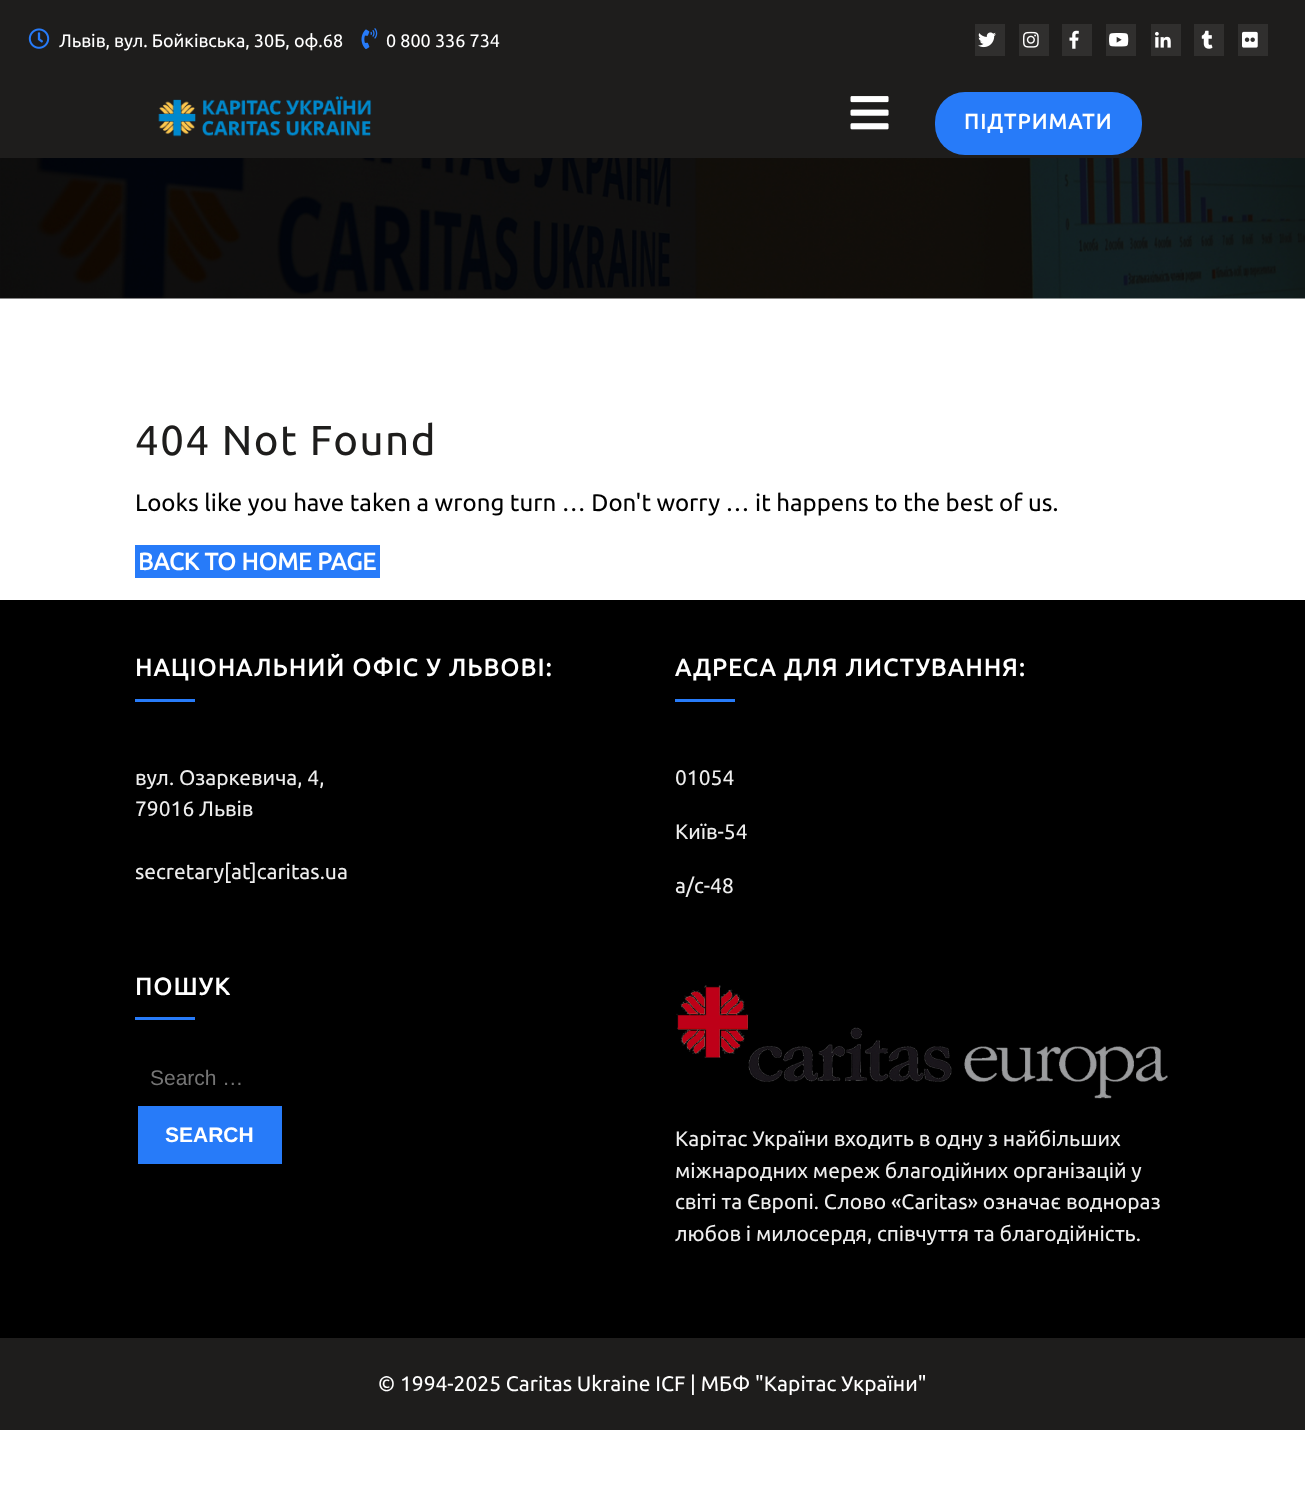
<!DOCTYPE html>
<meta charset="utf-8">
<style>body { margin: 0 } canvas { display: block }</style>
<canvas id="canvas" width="1305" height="1500"></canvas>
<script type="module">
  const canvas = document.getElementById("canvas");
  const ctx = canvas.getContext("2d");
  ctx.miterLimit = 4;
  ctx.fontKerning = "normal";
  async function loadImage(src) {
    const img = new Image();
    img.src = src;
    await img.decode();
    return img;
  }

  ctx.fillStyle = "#ffffff";
  ctx.fillRect(0, 0, 1305, 1500);
  ctx.fillStyle = "#1e1d1c";
  ctx.fillRect(0, 0, 1305, 158);
  ctx.drawImage(await loadImage("img1.png"), 28, 28, 22, 21);
  ctx.font = "18px Ubuntu";
  ctx.fillStyle = "#ffffff";
  ctx.fillText("Львів, вул. Бойківська, 30Б, оф.68", 59, 47);
  ctx.drawImage(await loadImage("img2.png"), 361, 28, 17, 22);
  ctx.fillText("0 800 336 734", 386, 47);
  ctx.fillStyle = "#302f2e";
  ctx.fillRect(975, 24, 30, 32);
  ctx.drawImage(await loadImage("img3.png"), 978, 32, 18, 16);
  ctx.fillRect(1019, 24, 30, 32);
  ctx.drawImage(await loadImage("img4.png"), 1023, 31, 16, 17);
  ctx.fillRect(1062, 24, 30, 32);
  ctx.drawImage(await loadImage("img5.png"), 1069, 30, 10, 19);
  ctx.fillRect(1106, 24, 30, 32);
  ctx.drawImage(await loadImage("img6.png"), 1109, 33, 20, 14);
  ctx.fillRect(1151, 24, 30, 32);
  ctx.drawImage(await loadImage("img7.png"), 1155, 31, 16, 17);
  ctx.fillRect(1194, 24, 30, 32);
  ctx.drawImage(await loadImage("img8.png"), 1201, 30, 12, 19);
  ctx.fillRect(1238, 24, 30, 32);
  ctx.drawImage(await loadImage("img9.png"), 1242, 31, 16, 17);
  ctx.drawImage(await loadImage("img10.png"), 158, 96, 214, 41);
  ctx.drawImage(await loadImage("img11.png"), 850, 96, 39, 34);
  ctx.fillStyle = "#277bf9";
  ctx.beginPath();
  ctx.roundRect(935, 92, 207, 63, 30);
  ctx.fill();
  ctx.letterSpacing = "1.5px";
  ctx.font = "bold 21px Ubuntu";
  ctx.fillStyle = "#ffffff";
  ctx.fillText("ПІДТРИМАТИ", 964, 129);
  ctx.drawImage(await loadImage("img12.png"), 0, 158, 1305, 141);
  ctx.font = "42px Ubuntu";
  ctx.fillStyle = "#1e1d1c";
  ctx.fillText("404 Not Found", 135, 455);
  ctx.letterSpacing = "0px";
  ctx.font = "24px Ubuntu";
  ctx.fillStyle = "#000000";
  ctx.fillText("Looks like you have taken a wrong turn … Don't worry … it happens to the best of us.", 135, 511);
  ctx.fillStyle = "#277bf9";
  ctx.fillRect(135, 545, 245, 33);
  ctx.font = "bold 24px Ubuntu";
  ctx.fillStyle = "#ffffff";
  ctx.fillText("BACK TO HOME PAGE", 138, 570);
  ctx.fillStyle = "#000000";
  ctx.fillRect(0, 600, 1305, 738);
  ctx.letterSpacing = "1.5px";
  ctx.fillStyle = "#ffffff";
  ctx.fillText("НАЦІОНАЛЬНИЙ ОФІС У ЛЬВОВІ:", 135, 676);
  ctx.fillStyle = "#277bf9";
  ctx.fillRect(135, 699, 60, 3);
  ctx.letterSpacing = "0px";
  ctx.font = "21px Ubuntu";
  ctx.fillStyle = "#eeeeee";
  ctx.fillText("вул. Озаркевича, 4,", 135, 785);
  ctx.fillText("79016 Львів", 135, 816);
  ctx.fillText("secretary[at]caritas.ua", 135, 879);
  ctx.letterSpacing = "1.5px";
  ctx.font = "bold 24px Ubuntu";
  ctx.fillStyle = "#ffffff";
  ctx.fillText("АДРЕСА ДЛЯ ЛИСТУВАННЯ:", 675, 676);
  ctx.fillStyle = "#277bf9";
  ctx.fillRect(675, 699, 60, 3);
  ctx.letterSpacing = "0px";
  ctx.font = "21px Ubuntu";
  ctx.fillStyle = "#eeeeee";
  ctx.fillText("01054", 675, 785);
  ctx.fillText("Київ-54", 675, 839);
  ctx.fillText("а/с-48", 675, 893);
  ctx.letterSpacing = "1.5px";
  ctx.font = "bold 24px Ubuntu";
  ctx.fillStyle = "#ffffff";
  ctx.fillText("ПОШУК", 135, 995);
  ctx.fillStyle = "#277bf9";
  ctx.fillRect(135, 1017, 60, 3);
  ctx.letterSpacing = "0px";
  ctx.font = "21px Liberation Sans";
  ctx.fillStyle = "#757575";
  ctx.fillText("Search …", 150, 1085);
  ctx.fillStyle = "#277bf9";
  ctx.fillRect(138, 1106, 144, 58);
  ctx.font = "bold 21px Liberation Sans";
  ctx.fillStyle = "#ffffff";
  ctx.fillText("SEARCH", 165, 1142);
  ctx.drawImage(await loadImage("img13.png"), 676, 985, 492, 114);
  ctx.font = "21px Ubuntu";
  ctx.fillStyle = "#eeeeee";
  ctx.fillText("Карітас України входить в одну з найбільших", 675, 1146);
  ctx.fillText("міжнародних мереж благодійних організацій у", 675, 1178);
  ctx.fillText("світі та Європі. Слово «Сaritas» означає воднораз", 675, 1209);
  ctx.fillText("любов і милосердя, співчуття та благодійність.", 675, 1241);
  ctx.fillStyle = "#1e1d1c";
  ctx.fillRect(0, 1338, 1305, 92);
  ctx.fillStyle = "#ffffff";
  ctx.fillText("© 1994-2025 Caritas Ukraine ICF | МБФ \"Карітас України\"", 378, 1391);
</script>
